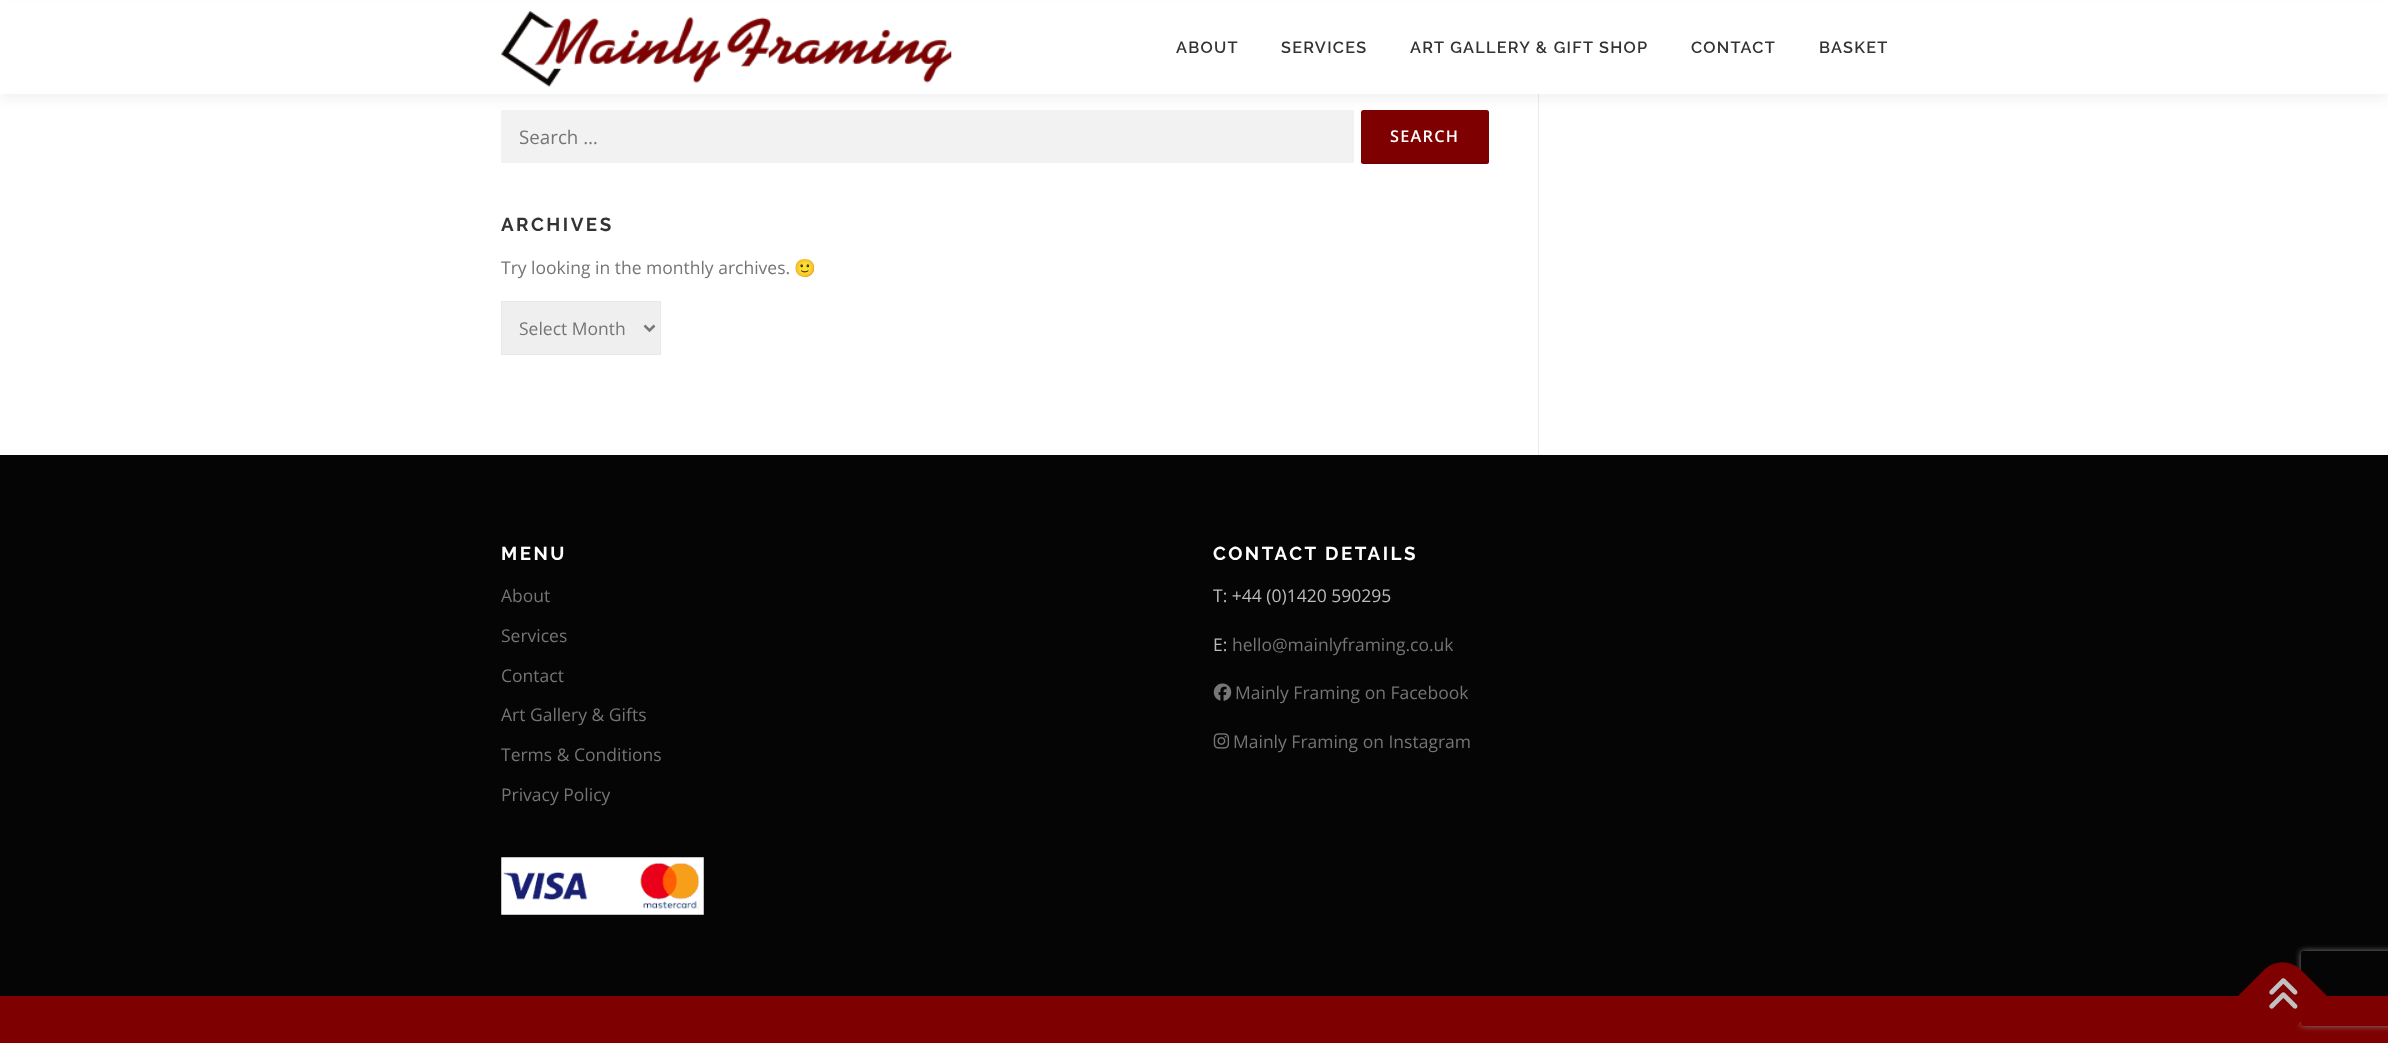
<!DOCTYPE html>
<meta charset="utf-8">
<style>body { margin: 0 } canvas { display: block }</style>
<canvas id="canvas" width="2388" height="1043"></canvas>
<script type="module">
  const canvas = document.getElementById("canvas");
  const ctx = canvas.getContext("2d");
  ctx.miterLimit = 4;
  ctx.fontKerning = "normal";
  async function loadImage(src) {
    const img = new Image();
    img.src = src;
    await img.decode();
    return img;
  }

  ctx.fillStyle = "#ffffff";
  ctx.fillRect(0, 0, 2388, 1043);
  ctx.fillStyle = "#e9e9e9";
  ctx.fillRect(1538, 94, 1, 361);
  ctx.fillStyle = "#f2f2f2";
  ctx.fillRect(501, 110, 853, 53);
  ctx.fillStyle = "#7f0000";
  ctx.beginPath();
  ctx.roundRect(1361, 110, 128, 54, 2.5);
  ctx.fill();
  ctx.fillStyle = "rgba(50, 50, 50, 0.06)";
  ctx.filter = "blur(6px)";
  ctx.beginPath();
  ctx.rect(0, 6, 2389, 94);
  ctx.fill();
  ctx.filter = "none";
  ctx.fillStyle = "#ffffff";
  ctx.fillRect(0, 1, 2388, 93);
  ctx.drawImage(await loadImage("img1.png"), 501, 11, 451, 76);
  ctx.letterSpacing = "1.25px";
  ctx.font = "600 16.25px Raleway";
  ctx.fillStyle = "#333333";
  ctx.fillText("ABOUT", 1176, 53);
  ctx.fillText("SERVICES", 1281, 53);
  ctx.fillText("ART GALLERY & GIFT SHOP", 1410, 53);
  ctx.fillText("CONTACT", 1691, 53);
  ctx.fillText("BASKET", 1819, 53);
  ctx.letterSpacing = "0px";
  ctx.font = "18.75px Open Sans";
  ctx.fillStyle = "#757575";
  ctx.fillText("Search …", 519, 144);
  ctx.fillStyle = "rgba(0, 0, 0, 0.1)";
  ctx.beginPath();
  ctx.moveTo(1361, 160);
  ctx.lineTo(1361, 162);
  ctx.bezierCurveTo(1361, 163, 1362, 164, 1364, 164);
  ctx.lineTo(1486, 164);
  ctx.bezierCurveTo(1488, 164, 1489, 163, 1489, 162);
  ctx.lineTo(1489, 160);
  ctx.bezierCurveTo(1489, 161, 1488, 162, 1486, 162);
  ctx.lineTo(1364, 162);
  ctx.bezierCurveTo(1362, 162, 1361, 161, 1361, 160);
  ctx.closePath();
  ctx.fill();
  ctx.letterSpacing = "1.25px";
  ctx.font = "600 16.25px Open Sans";
  ctx.fillStyle = "#ffffff";
  ctx.fillText("SEARCH", 1390, 142);
  ctx.letterSpacing = "2.5px";
  ctx.font = "bold 18.75px Raleway";
  ctx.fillStyle = "#333333";
  ctx.fillText("ARCHIVES", 501, 231);
  ctx.letterSpacing = "0px";
  ctx.font = "17.5px Open Sans";
  ctx.fillStyle = "#757575";
  ctx.fillText("Try looking in the monthly archives.", 501, 274);
  ctx.font = "17.5px Noto Color Emoji";
  ctx.fillText("🙂", 794, 274);
  ctx.fillStyle = "#efefef";
  ctx.beginPath();
  ctx.rect(501.5, 301.5, 159, 53);
  ctx.fill();
  ctx.strokeStyle = "#e9e9e9";
  ctx.stroke();
  ctx.beginPath();
  ctx.moveTo(644.5, 325.5);
  ctx.lineTo(649.5, 330.5);
  ctx.lineTo(654.5, 325.5);
  ctx.strokeStyle = "#777777";
  ctx.lineWidth = 2.5;
  ctx.stroke();
  ctx.font = "17.5px Open Sans";
  ctx.fillStyle = "#757575";
  ctx.fillText("Select Month", 519, 335);
  ctx.fillStyle = "#050505";
  ctx.fillRect(0, 455, 2388, 541);
  ctx.letterSpacing = "2.5px";
  ctx.font = "bold 18.75px Raleway";
  ctx.fillStyle = "#ffffff";
  ctx.fillText("MENU", 501, 560);
  ctx.letterSpacing = "0px";
  ctx.font = "17.5px Open Sans";
  ctx.fillStyle = "#757575";
  ctx.fillText("About", 501, 602);
  ctx.fillText("Services", 501, 642);
  ctx.fillText("Contact", 501, 682);
  ctx.fillText("Art Gallery & Gifts", 501, 721);
  ctx.fillText("Terms & Conditions", 501, 761);
  ctx.fillText("Privacy Policy", 501, 801);
  ctx.drawImage(await loadImage("img2.png"), 501, 857, 203, 58);
  ctx.letterSpacing = "2.5px";
  ctx.font = "bold 18.75px Raleway";
  ctx.fillStyle = "#ffffff";
  ctx.fillText("CONTACT DETAILS", 1213, 560);
  ctx.letterSpacing = "0px";
  ctx.font = "17.5px Open Sans";
  ctx.fillStyle = "#bbbbbb";
  ctx.fillText("T: +44 (0)1420 590295", 1213, 602);
  ctx.fillText("E:", 1213, 651);
  ctx.fillStyle = "#757575";
  ctx.fillText("hello@mainlyframing.co.uk", 1232, 651);
  ctx.drawImage(await loadImage("img3.png"), 1213, 683, 19, 18);
  ctx.fillText("Mainly Framing on Facebook", 1235, 699);
  ctx.drawImage(await loadImage("img4.png"), 1213, 733, 17, 16);
  ctx.fillText("Mainly Framing on Instagram", 1233, 748);
  ctx.fillStyle = "#7f0000";
  ctx.fillRect(0, 996, 2388, 47);
  ctx.save();
  ctx.beginPath();
  ctx.moveTo(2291, 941);
  ctx.lineTo(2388, 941);
  ctx.lineTo(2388, 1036);
  ctx.lineTo(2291, 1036);
  ctx.closePath();
  ctx.moveTo(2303.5, 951);
  ctx.lineTo(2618.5, 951);
  ctx.bezierCurveTo(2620, 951, 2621, 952, 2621, 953.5);
  ctx.lineTo(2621, 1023.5);
  ctx.bezierCurveTo(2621, 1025, 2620, 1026, 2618.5, 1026);
  ctx.lineTo(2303.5, 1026);
  ctx.bezierCurveTo(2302, 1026, 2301, 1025, 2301, 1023.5);
  ctx.lineTo(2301, 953.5);
  ctx.bezierCurveTo(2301, 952, 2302, 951, 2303.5, 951);
  ctx.closePath();
  ctx.clip("evenodd");
  ctx.fillStyle = "#808080";
  ctx.filter = "blur(3px)";
  ctx.beginPath();
  ctx.roundRect(2301, 951, 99, 75, 2.5);
  ctx.fill();
  ctx.filter = "none";
  ctx.restore();
  ctx.beginPath();
  ctx.moveTo(2238, 996);
  ctx.lineTo(2265, 969);
  ctx.bezierCurveTo(2275, 960, 2290, 960, 2300, 969);
  ctx.lineTo(2327, 996);
  ctx.lineTo(2282, 1040);
  ctx.closePath();
  ctx.fill();
  ctx.drawImage(await loadImage("img5.png"), 2269, 978, 29, 31);
</script>
